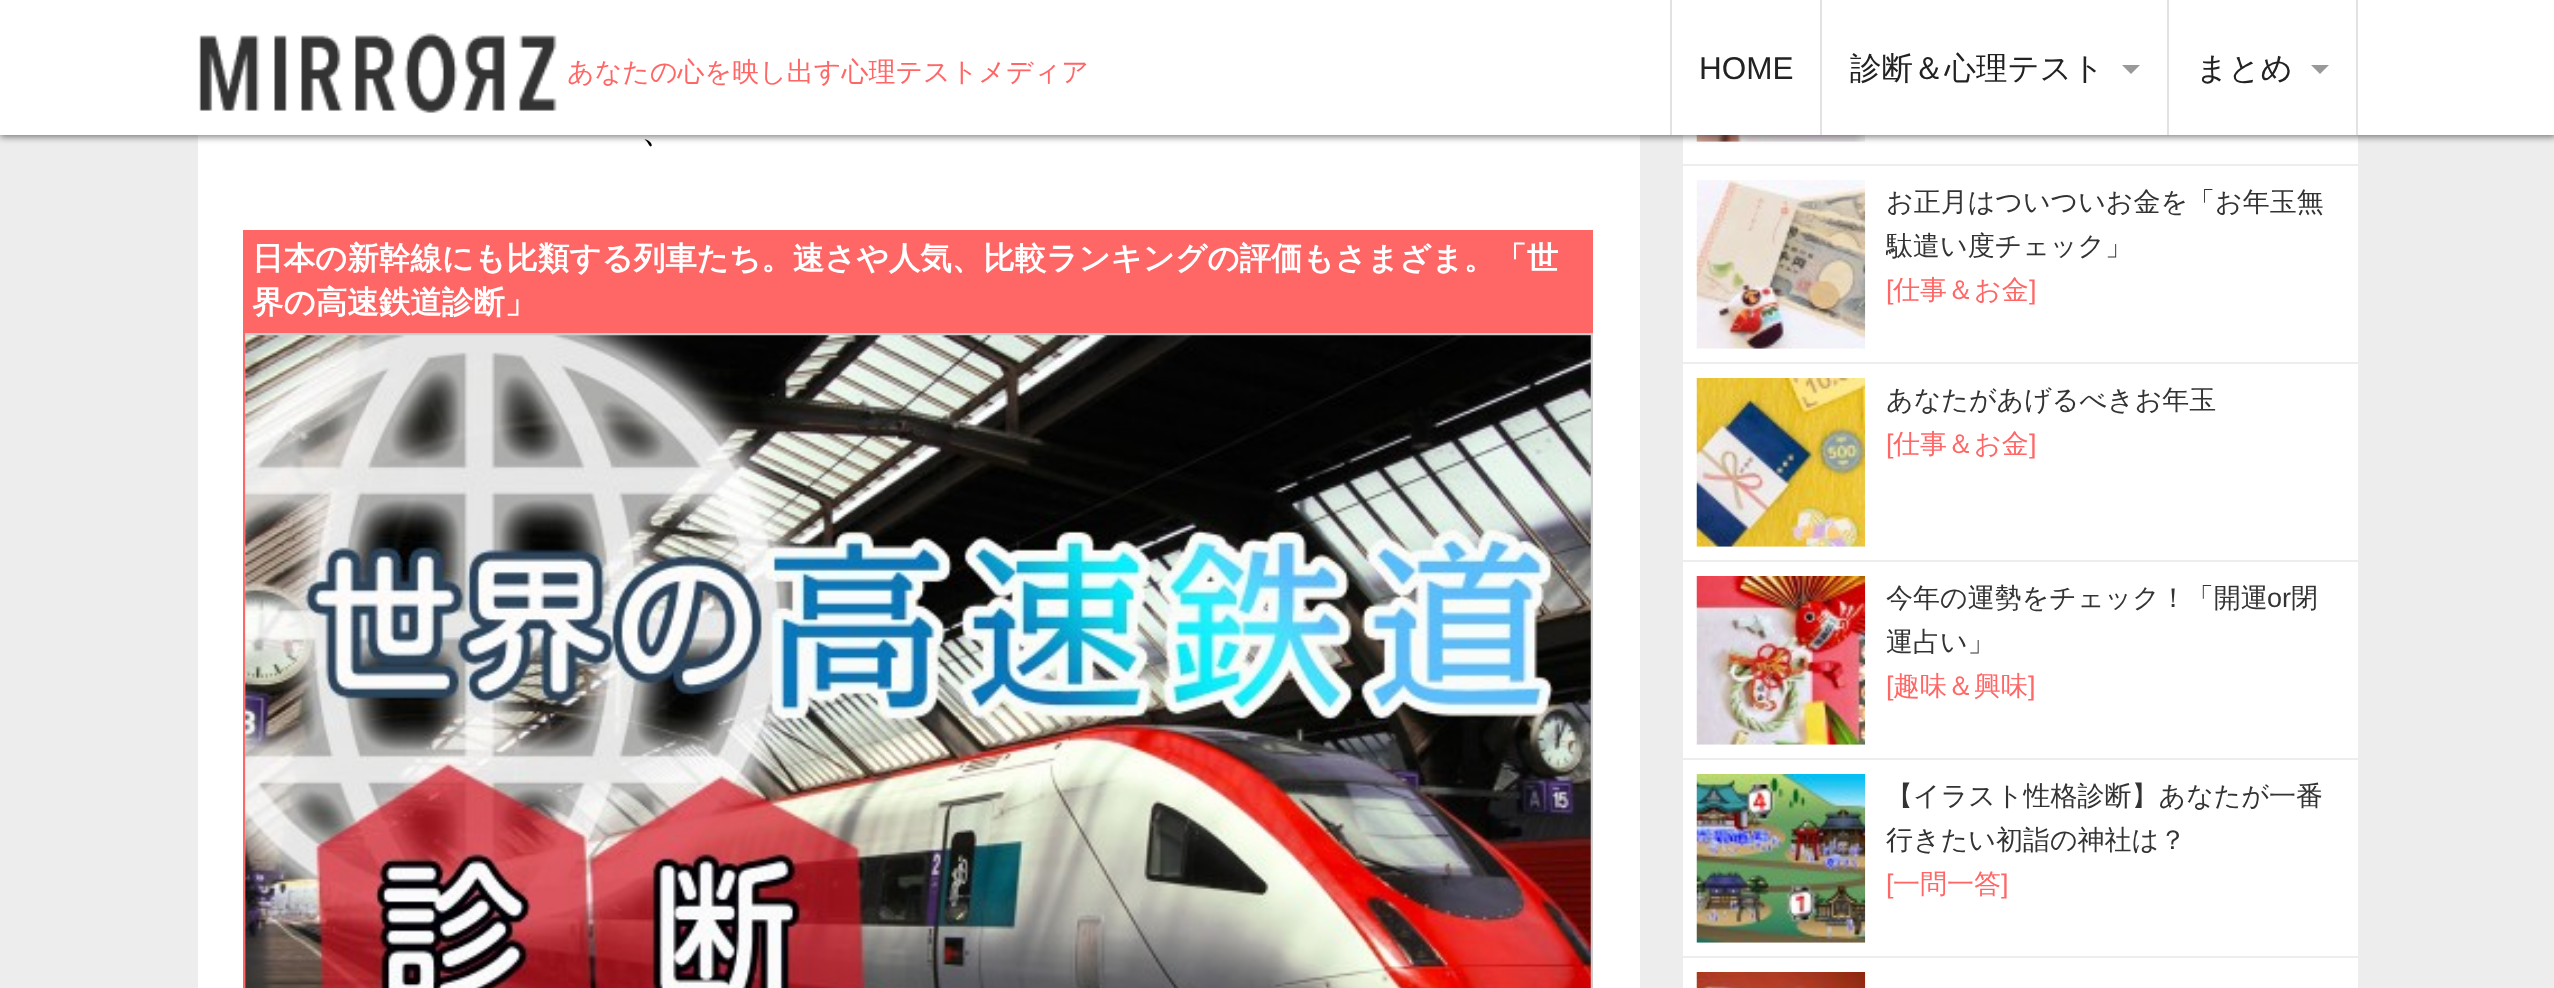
<!DOCTYPE html>
<meta charset="utf-8">
<style>body { margin: 0 } canvas { display: block }</style>
<canvas id="canvas" width="2554" height="988"></canvas>
<script type="module">
  const canvas = document.getElementById("canvas");
  const ctx = canvas.getContext("2d");
  ctx.miterLimit = 4;
  ctx.fontKerning = "normal";
  async function loadImage(src) {
    const img = new Image();
    img.src = src;
    await img.decode();
    return img;
  }

  ctx.fillStyle = "#ededed";
  ctx.fillRect(0, 0, 2554, 988);
  ctx.fillStyle = "#ffffff";
  ctx.fillRect(198, 135, 1442, 853);
  ctx.fillRect(1683, 135, 675, 853);
  ctx.drawImage(await loadImage("img3.png"), 1696, 135, 169, 7);
  ctx.fillStyle = "rgba(0, 0, 0, 0.5)";
  ctx.filter = "blur(3.5px)";
  ctx.beginPath();
  ctx.rect(0, 2, 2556, 135);
  ctx.fill();
  ctx.filter = "none";
  ctx.fillStyle = "#ffffff";
  ctx.fillRect(0, 0, 2554, 135);
  ctx.drawImage(await loadImage("img1.png"), 199, 33, 358, 80);
  ctx.font = "500 27px WenQuanYi Zen Hei";
  ctx.fillStyle = "#ff6666";
  ctx.fillText("あなたの心を映し出す心理テストメディア", 567, 81);
  ctx.fillStyle = "#e2e2e2";
  ctx.fillRect(1670, 0, 2, 135);
  ctx.font = "31.5px Liberation Sans";
  ctx.fillStyle = "#222222";
  ctx.fillText("HOME", 1699, 79);
  ctx.fillStyle = "#e2e2e2";
  ctx.fillRect(1820, 0, 2, 135);
  ctx.font = "500 31.5px WenQuanYi Zen Hei";
  ctx.fillStyle = "#222222";
  ctx.fillText("診断＆心理テスト", 1850, 79);
  ctx.fillStyle = "#999999";
  ctx.beginPath();
  ctx.moveTo(2122, 65);
  ctx.lineTo(2140, 65);
  ctx.lineTo(2131, 74);
  ctx.closePath();
  ctx.fill();
  ctx.fillStyle = "#e2e2e2";
  ctx.fillRect(2356, 0, 2, 135);
  ctx.fillRect(2167, 0, 2, 135);
  ctx.fillStyle = "#222222";
  ctx.fillText("まとめ", 2196, 79);
  ctx.fillStyle = "#999999";
  ctx.beginPath();
  ctx.moveTo(2311, 65);
  ctx.lineTo(2329, 65);
  ctx.lineTo(2320, 74);
  ctx.closePath();
  ctx.fill();
  ctx.font = "500 36px WenQuanYi Zen Hei";
  ctx.fillStyle = "#000000";
  ctx.fillText("、", 641, 142);
  ctx.fillStyle = "#ff6666";
  ctx.fillRect(245, 232, 1346, 101);
  ctx.fillRect(243, 230, 1350, 2);
  ctx.fillRect(1591, 230, 2, 105);
  ctx.fillRect(243, 333, 2, 655);
  ctx.fillRect(243, 230, 2, 105);
  ctx.font = "bold 31.5px WenQuanYi Zen Hei";
  ctx.fillStyle = "#ffffff";
  ctx.fillText("日本の新幹線にも比類する列車たち。速さや人気、比較ランキングの評価もさまざま。「世", 252, 269);
  ctx.fillText("界の高速鉄道診断」", 252, 313);
  ctx.fillStyle = "#cccccc";
  ctx.fillRect(245, 333, 1348, 655);
  ctx.drawImage(await loadImage("img2.png"), 245, 335, 1346, 653);
  ctx.fillStyle = "#ededed";
  ctx.fillRect(1683, 164, 675, 2);
  ctx.drawImage(await loadImage("img4.png"), 1696, 180, 170, 169);
  ctx.font = "500 27px WenQuanYi Zen Hei";
  ctx.fillStyle = "#333333";
  ctx.fillText("お正月はついついお金を「お年玉無", 1886, 211);
  ctx.save();
  ctx.beginPath();
  ctx.rect(1886, 180, 459, 133);
  ctx.clip();
  ctx.fillText("駄遣い度チェック」", 1886, 255);
  ctx.restore();
  ctx.font = "27px Liberation Sans";
  ctx.fillStyle = "#ff6666";
  ctx.fillText("[", 1886, 299);
  ctx.font = "500 27px WenQuanYi Zen Hei";
  ctx.fillText("仕事＆お金", 1893, 299);
  ctx.font = "27px Liberation Sans";
  ctx.fillText("]", 2029, 299);
  ctx.fillStyle = "#ededed";
  ctx.fillRect(1683, 362, 675, 2);
  ctx.drawImage(await loadImage("img5.png"), 1696, 378, 170, 169);
  ctx.font = "500 27px WenQuanYi Zen Hei";
  ctx.fillStyle = "#333333";
  ctx.fillText("あなたがあげるべきお年玉", 1886, 409);
  ctx.font = "27px Liberation Sans";
  ctx.fillStyle = "#ff6666";
  ctx.fillText("[", 1886, 453);
  ctx.font = "500 27px WenQuanYi Zen Hei";
  ctx.fillText("仕事＆お金", 1893, 453);
  ctx.font = "27px Liberation Sans";
  ctx.fillText("]", 2029, 453);
  ctx.fillStyle = "#ededed";
  ctx.fillRect(1683, 560, 675, 2);
  ctx.drawImage(await loadImage("img6.png"), 1696, 576, 170, 169);
  ctx.font = "500 27px WenQuanYi Zen Hei";
  ctx.fillStyle = "#333333";
  ctx.fillText("今年の運勢をチェック！「開運", 1886, 607);
  ctx.font = "27px Liberation Sans";
  ctx.fillText("or", 2267, 607);
  ctx.font = "500 27px WenQuanYi Zen Hei";
  ctx.fillText("閉", 2291, 607);
  ctx.fillText("運占い」", 1886, 651);
  ctx.font = "27px Liberation Sans";
  ctx.fillStyle = "#ff6666";
  ctx.fillText("[", 1886, 695);
  ctx.font = "500 27px WenQuanYi Zen Hei";
  ctx.fillText("趣味＆興味", 1893, 695);
  ctx.font = "27px Liberation Sans";
  ctx.fillText("]", 2028, 695);
  ctx.fillStyle = "#ededed";
  ctx.fillRect(1683, 758, 675, 2);
  ctx.drawImage(await loadImage("img7.png"), 1696, 774, 170, 169);
  ctx.font = "500 27px WenQuanYi Zen Hei";
  ctx.fillStyle = "#333333";
  ctx.fillText("【イラスト性格診断】あなたが一番", 1886, 805);
  ctx.fillText("行きたい初詣の神社は？", 1886, 849);
  ctx.font = "27px Liberation Sans";
  ctx.fillStyle = "#ff6666";
  ctx.fillText("[", 1886, 893);
  ctx.font = "500 27px WenQuanYi Zen Hei";
  ctx.fillText("一問一答", 1893, 893);
  ctx.font = "27px Liberation Sans";
  ctx.fillText("]", 2001, 893);
  ctx.fillStyle = "#ededed";
  ctx.fillRect(1683, 956, 675, 2);
  ctx.drawImage(await loadImage("img8.png"), 1696, 972, 170, 16);
</script>
